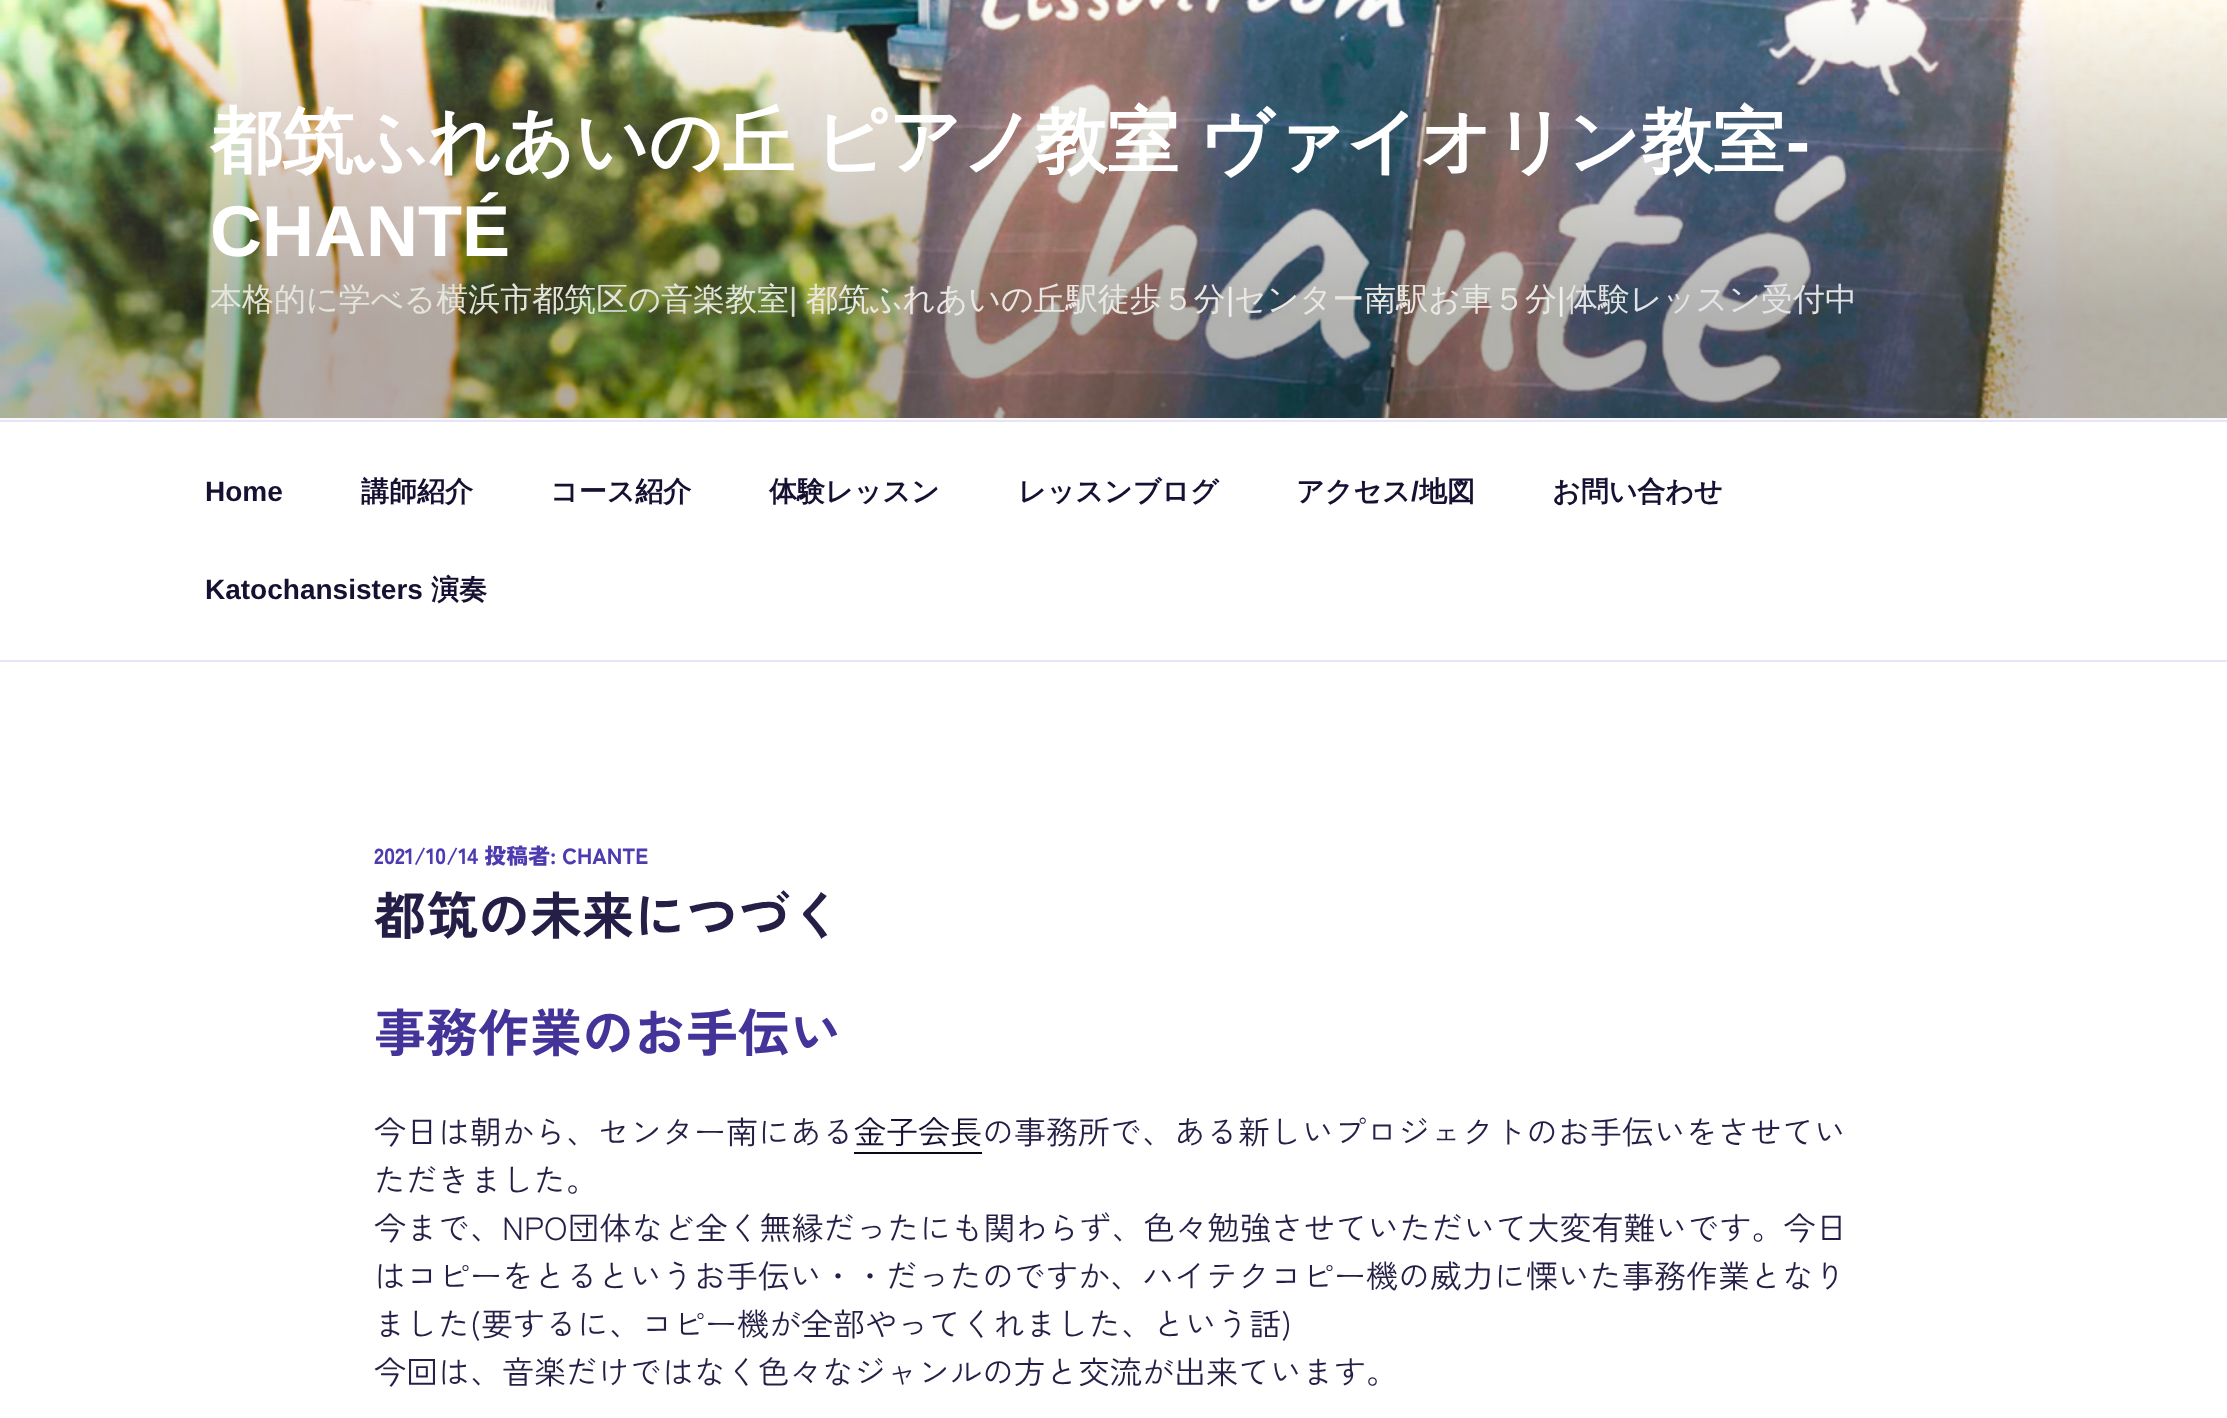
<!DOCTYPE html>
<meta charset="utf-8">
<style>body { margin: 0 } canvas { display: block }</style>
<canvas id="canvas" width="2227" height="1418"></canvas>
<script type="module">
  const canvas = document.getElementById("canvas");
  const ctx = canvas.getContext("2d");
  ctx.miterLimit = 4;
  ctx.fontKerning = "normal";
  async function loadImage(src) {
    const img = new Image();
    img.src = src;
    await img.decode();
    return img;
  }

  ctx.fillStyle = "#ffffff";
  ctx.fillRect(0, 0, 2227, 1418);
  ctx.fillStyle = "#f8f7fc";
  ctx.fillRect(0, 418, 2227, 2);
  ctx.drawImage(await loadImage("img1.png"), 0, 0, 2227, 418);
  ctx.font = "bold 72px WenQuanYi Zen Hei";
  ctx.fillStyle = "#ffffff";
  ctx.fillText("都筑ふれあいの丘", 210, 166);
  ctx.wordSpacing = "-2px";
  ctx.fillText("ピアノ教室 ヴァイオリン教室", 814, 166);
  ctx.wordSpacing = "0px";
  ctx.font = "bold 72px Liberation Sans";
  ctx.fillText("-", 1786, 166);
  ctx.fillText("CHANTÉ", 210, 256);
  ctx.font = "500 32px WenQuanYi Zen Hei";
  ctx.fillStyle = "#e3e4dc";
  ctx.fillText("本格的に学べる横浜市都筑区の音楽教室", 210, 310);
  ctx.font = "32px Liberation Sans";
  ctx.fillStyle = "#d9ddd3";
  ctx.fillText("|", 789, 310);
  ctx.font = "500 32px WenQuanYi Zen Hei";
  ctx.fillStyle = "#e9e7e3";
  ctx.fillText("都筑ふれあいの丘駅徒歩５分", 806, 310);
  ctx.font = "32px Liberation Sans";
  ctx.fillStyle = "#f0f0f0";
  ctx.fillText("|", 1226, 310);
  ctx.font = "500 32px WenQuanYi Zen Hei";
  ctx.fillStyle = "#e9e7e3";
  ctx.fillText("センター南駅お車５分", 1234, 310);
  ctx.font = "32px Liberation Sans";
  ctx.fillStyle = "#f0f0f0";
  ctx.fillText("|", 1557, 310);
  ctx.font = "500 32px WenQuanYi Zen Hei";
  ctx.fillStyle = "#e1e3e5";
  ctx.fillText("体験レッスン受付中", 1566, 310);
  ctx.fillStyle = "#e7e4f6";
  ctx.fillRect(0, 420, 2227, 2);
  ctx.fillRect(0, 660, 2227, 2);
  ctx.font = "bold 28px Liberation Sans";
  ctx.fillStyle = "#161132";
  ctx.fillText("Home", 205, 501);
  ctx.font = "bold 28px WenQuanYi Zen Hei";
  ctx.fillText("講師紹介", 361, 501);
  ctx.fillText("コース紹介", 550, 501);
  ctx.fillText("体験レッスン", 769, 501);
  ctx.fillText("レッスンブログ", 1018, 501);
  ctx.fillText("アクセス", 1296, 501);
  ctx.font = "bold 28px Liberation Sans";
  ctx.fillText("/", 1411, 501);
  ctx.font = "bold 28px WenQuanYi Zen Hei";
  ctx.fillText("地図", 1419, 501);
  ctx.fillText("お問い合わせ", 1552, 501);
  ctx.font = "bold 28px Liberation Sans";
  ctx.fillText("Katochansisters", 205, 599);
  ctx.font = "bold 28px WenQuanYi Zen Hei";
  ctx.fillText("演奏", 431, 599);
  ctx.font = "900 22px Zen Kaku Gothic New";
  ctx.fillStyle = "#4e3bb0";
  ctx.fillText("2021/10/14 投稿者: CHANTE", 374, 864);
  ctx.font = "bold 52px Zen Kaku Gothic New";
  ctx.fillStyle = "#251f47";
  ctx.fillText("都筑の未来につづく", 374, 935);
  ctx.fillStyle = "#443399";
  ctx.fillText("事務作業のお手伝い", 374, 1052);
  ctx.font = "32px Zen Kaku Gothic New";
  ctx.fillStyle = "#251f47";
  ctx.fillText("今日は朝から、センター南にある", 374, 1144);
  ctx.fillStyle = "#161132";
  ctx.fillText("金子会長", 854, 1144);
  ctx.fillStyle = "#0a0817";
  ctx.fillRect(854, 1152, 128, 2);
  ctx.fillStyle = "#251f47";
  ctx.fillText("の事務所で、ある新しいプロジェクトのお手伝いをさせてい", 982, 1144);
  ctx.fillText("ただきました。", 374, 1192);
  ctx.fillText("今まで、NPO団体など全く無縁だったにも関わらず、色々勉強させていただいて大変有難いです。今日", 374, 1240);
  ctx.fillText("はコピーをとるというお手伝い・・だったのですか、ハイテクコピー機の威力に慄いた事務作業となり", 374, 1288);
  ctx.fillText("ました(要するに、コピー機が全部やってくれました、という話)", 374, 1336);
  ctx.fillText("今回は、音楽だけではなく色々なジャンルの方と交流が出来ています。", 374, 1384);
</script>
